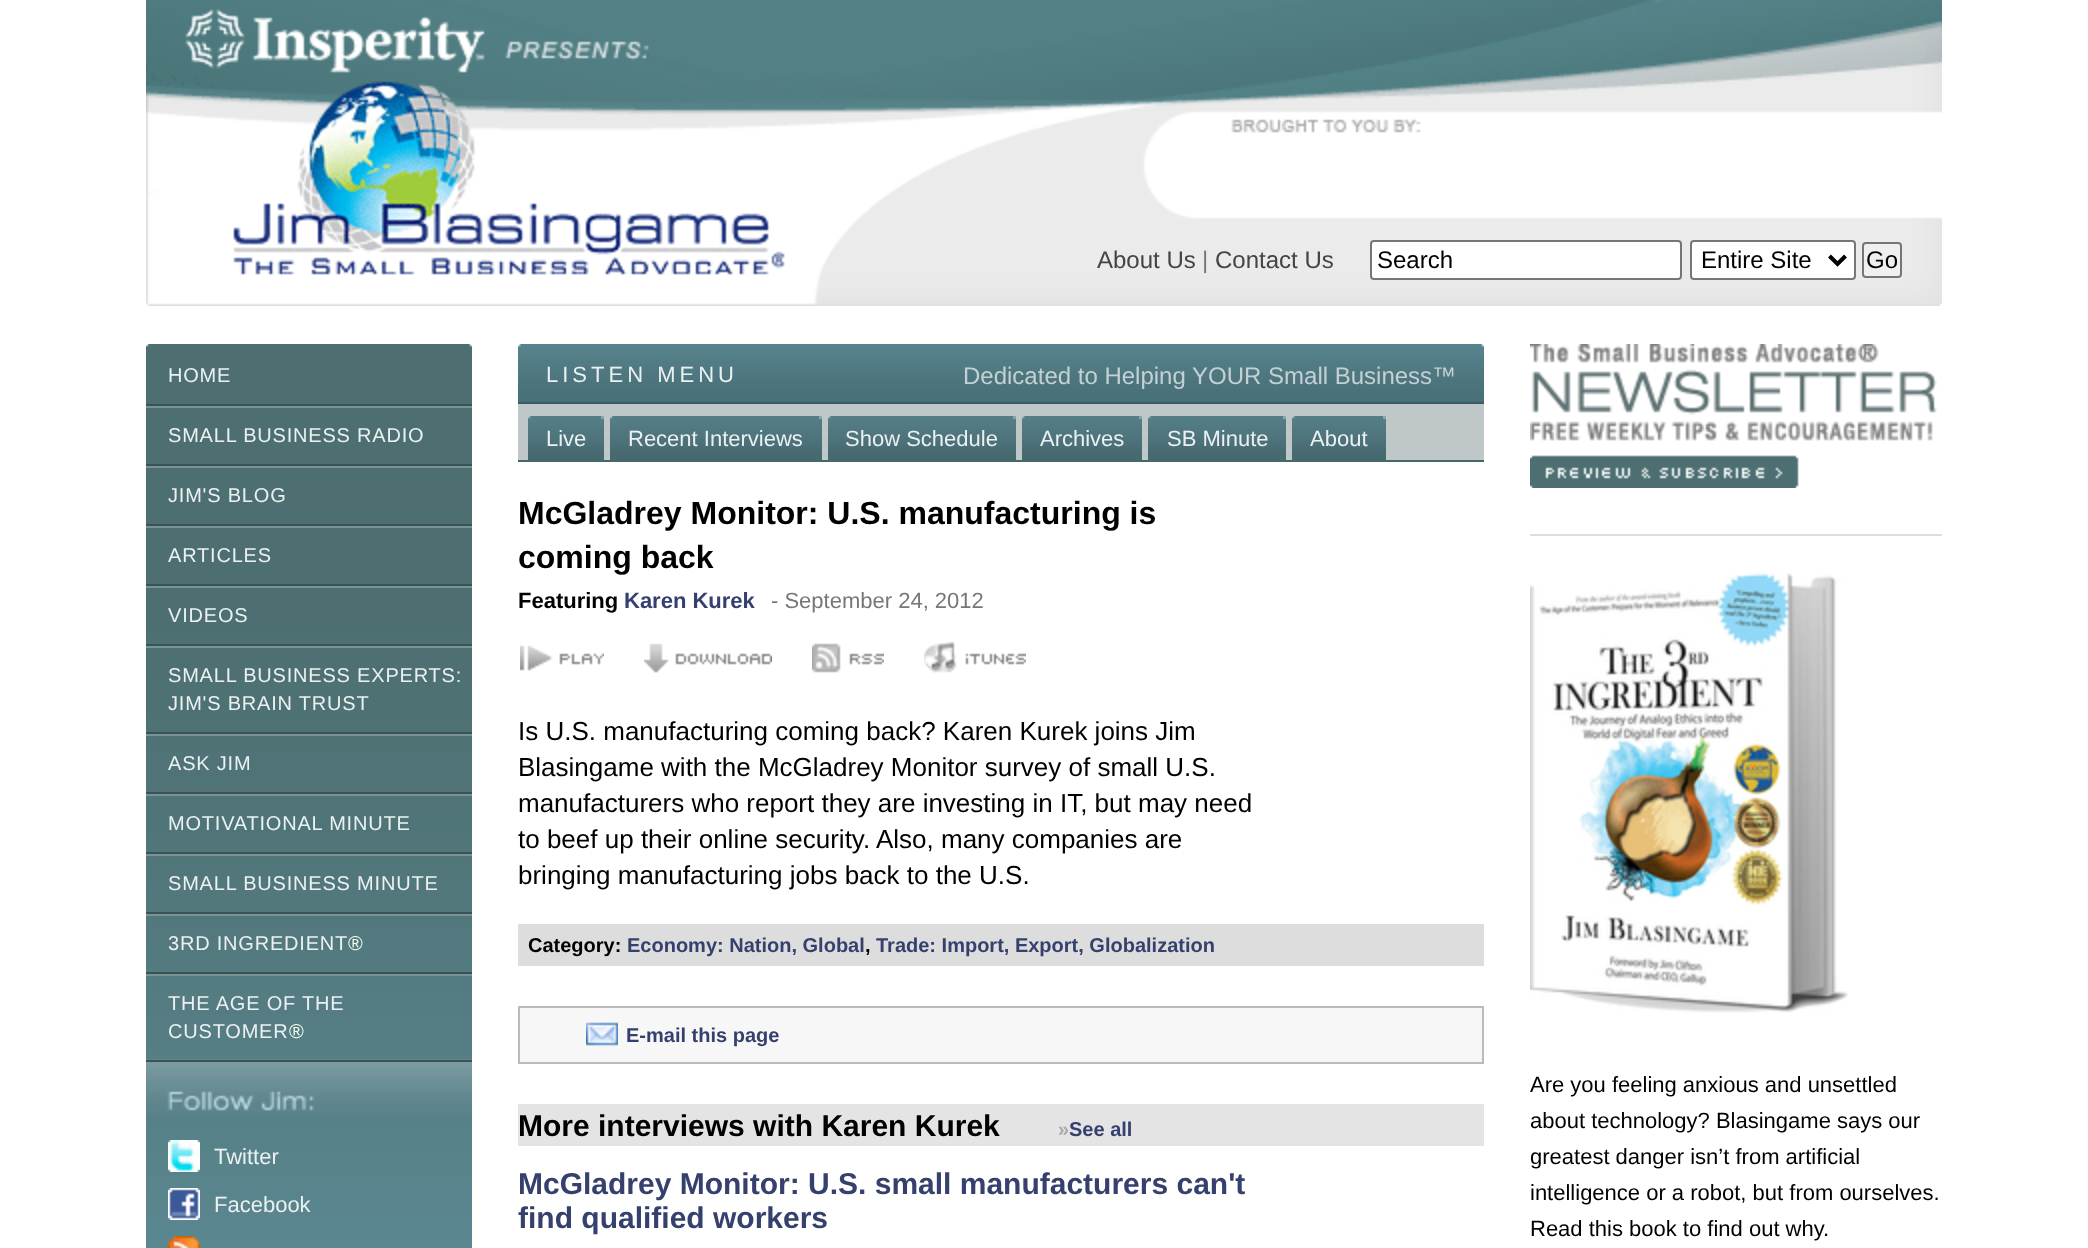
<!DOCTYPE html>
<meta charset="utf-8">
<style>body { margin: 0 } canvas { display: block }</style>
<canvas id="canvas" width="2088" height="1248"></canvas>
<script type="module">
  const canvas = document.getElementById("canvas");
  const ctx = canvas.getContext("2d");
  ctx.miterLimit = 4;
  ctx.fontKerning = "normal";
  async function loadImage(src) {
    const img = new Image();
    img.src = src;
    await img.decode();
    return img;
  }

  ctx.fillStyle = "#ffffff";
  ctx.fillRect(0, 0, 2088, 1248);
  ctx.drawImage(await loadImage("img1.png"), 146, 0, 1796, 306);
  ctx.font = "24px Liberation Sans";
  ctx.fillStyle = "#444444";
  ctx.fillText("About Us", 1097, 268);
  ctx.fillStyle = "#777777";
  ctx.fillText("|", 1202, 268);
  ctx.fillStyle = "#444444";
  ctx.fillText("Contact Us", 1215, 268);
  ctx.fillStyle = "#ffffff";
  ctx.beginPath();
  ctx.roundRect(1371, 241, 310, 38, 3);
  ctx.fill();
  ctx.strokeStyle = "#767676";
  ctx.lineWidth = 2;
  ctx.stroke();
  ctx.fillStyle = "#000000";
  ctx.fillText("Search", 1377, 268);
  ctx.fillStyle = "#ffffff";
  ctx.beginPath();
  ctx.roundRect(1691, 241, 164, 38, 3);
  ctx.fill();
  ctx.stroke();
  ctx.beginPath();
  ctx.moveTo(1829.5, 256);
  ctx.lineTo(1837.5, 264);
  ctx.lineTo(1845.5, 256);
  ctx.strokeStyle = "#000000";
  ctx.lineWidth = 4;
  ctx.stroke();
  ctx.fillStyle = "#000000";
  ctx.fillText("Entire Site", 1701, 268);
  ctx.fillStyle = "#efefef";
  ctx.beginPath();
  ctx.roundRect(1863, 243, 38, 34, 3);
  ctx.fill();
  ctx.strokeStyle = "#767676";
  ctx.lineWidth = 2;
  ctx.stroke();
  ctx.fillStyle = "#000000";
  ctx.fillText("Go", 1866, 268);
  ctx.drawImage(await loadImage("img2.png"), 146, 344, 326, 904);
  ctx.fillStyle = "#3a5456";
  ctx.fillRect(146, 404, 326, 2);
  ctx.letterSpacing = "0.8px";
  ctx.font = "20px Liberation Sans";
  ctx.fillStyle = "#ebf1f2";
  ctx.fillText("HOME", 168, 382);
  ctx.fillStyle = "#799496";
  ctx.fillRect(146, 406, 326, 2);
  ctx.fillStyle = "#3a5456";
  ctx.fillRect(146, 464, 326, 2);
  ctx.fillStyle = "#ebf1f2";
  ctx.fillText("SMALL BUSINESS RADIO", 168, 442);
  ctx.fillStyle = "#799496";
  ctx.fillRect(146, 466, 326, 2);
  ctx.fillStyle = "#3a5456";
  ctx.fillRect(146, 524, 326, 2);
  ctx.fillStyle = "#ebf1f2";
  ctx.fillText("JIM'S BLOG", 168, 502);
  ctx.fillStyle = "#799496";
  ctx.fillRect(146, 526, 326, 2);
  ctx.fillStyle = "#3a5456";
  ctx.fillRect(146, 584, 326, 2);
  ctx.fillStyle = "#ebf1f2";
  ctx.fillText("ARTICLES", 168, 562);
  ctx.fillStyle = "#799496";
  ctx.fillRect(146, 586, 326, 2);
  ctx.fillStyle = "#3a5456";
  ctx.fillRect(146, 644, 326, 2);
  ctx.fillStyle = "#ebf1f2";
  ctx.fillText("VIDEOS", 168, 622);
  ctx.fillStyle = "#799496";
  ctx.fillRect(146, 646, 326, 2);
  ctx.fillStyle = "#3a5456";
  ctx.fillRect(146, 732, 326, 2);
  ctx.fillStyle = "#ebf1f2";
  ctx.fillText("SMALL BUSINESS EXPERTS:", 168, 682);
  ctx.fillText("JIM'S BRAIN TRUST", 168, 710);
  ctx.fillStyle = "#799496";
  ctx.fillRect(146, 734, 326, 2);
  ctx.fillStyle = "#3a5456";
  ctx.fillRect(146, 792, 326, 2);
  ctx.fillStyle = "#ebf1f2";
  ctx.fillText("ASK JIM", 168, 770);
  ctx.fillStyle = "#799496";
  ctx.fillRect(146, 794, 326, 2);
  ctx.fillStyle = "#3a5456";
  ctx.fillRect(146, 852, 326, 2);
  ctx.fillStyle = "#ebf1f2";
  ctx.fillText("MOTIVATIONAL MINUTE", 168, 830);
  ctx.fillStyle = "#799496";
  ctx.fillRect(146, 854, 326, 2);
  ctx.fillStyle = "#3a5456";
  ctx.fillRect(146, 912, 326, 2);
  ctx.fillStyle = "#ebf1f2";
  ctx.fillText("SMALL BUSINESS MINUTE", 168, 890);
  ctx.fillStyle = "#799496";
  ctx.fillRect(146, 914, 326, 2);
  ctx.fillStyle = "#3a5456";
  ctx.fillRect(146, 972, 326, 2);
  ctx.fillStyle = "#ebf1f2";
  ctx.fillText("3RD INGREDIENT", 168, 950);
  ctx.fillStyle = "#eeffee";
  ctx.fillText("®", 348, 950);
  ctx.fillStyle = "#799496";
  ctx.fillRect(146, 974, 326, 2);
  ctx.fillStyle = "#3a5456";
  ctx.fillRect(146, 1060, 326, 2);
  ctx.fillStyle = "#ebf1f2";
  ctx.fillText("THE AGE OF THE", 168, 1010);
  ctx.fillText("CUSTOMER", 168, 1038);
  ctx.fillStyle = "#eeffee";
  ctx.fillText("®", 289, 1038);
  ctx.drawImage(await loadImage("img3.png"), 168, 1140, 32, 32);
  ctx.letterSpacing = "0px";
  ctx.font = "22px Liberation Sans";
  ctx.fillStyle = "#ebf1f2";
  ctx.fillText("Twitter", 214, 1164);
  ctx.drawImage(await loadImage("img4.png"), 168, 1188, 32, 32);
  ctx.fillText("Facebook", 214, 1212);
  ctx.drawImage(await loadImage("img5.png"), 168, 1236, 32, 12);
  ctx.fillStyle = "#bfc7c9";
  ctx.fillRect(518, 404, 966, 56);
  ctx.drawImage(await loadImage("img6.png"), 518, 344, 966, 60);
  ctx.letterSpacing = "4px";
  ctx.fillStyle = "#ebf1f2";
  ctx.fillText("LISTEN MENU", 546, 382);
  ctx.letterSpacing = "0px";
  ctx.font = "24px Liberation Sans";
  ctx.fillStyle = "#c3d1d4";
  ctx.fillText("Dedicated to Helping YOUR Small Business™", 963, 384);
  ctx.fillStyle = "#44656c";
  ctx.fillRect(518, 460, 966, 2);
  ctx.drawImage(await loadImage("img7.png"), 528, 416, 76, 46);
  ctx.fillStyle = "#8ba3a8";
  ctx.fillRect(601, 416, 3, 3);
  ctx.font = "22px Liberation Sans";
  ctx.fillStyle = "#ebf1f2";
  ctx.fillText("Live", 546, 446);
  ctx.drawImage(await loadImage("img8.png"), 610, 416, 212, 46);
  ctx.fillStyle = "#90a6ab";
  ctx.fillRect(819, 416, 3, 3);
  ctx.fillStyle = "#ebf1f2";
  ctx.fillText("Recent Interviews", 628, 446);
  ctx.drawImage(await loadImage("img9.png"), 828, 416, 188, 46);
  ctx.fillStyle = "#8ba3a8";
  ctx.fillRect(1013, 416, 3, 3);
  ctx.fillStyle = "#ebf1f2";
  ctx.fillText("Show Schedule", 845, 446);
  ctx.drawImage(await loadImage("img10.png"), 1022, 416, 120, 46);
  ctx.fillStyle = "#8ba3a8";
  ctx.fillRect(1139, 416, 3, 3);
  ctx.fillStyle = "#ebf1f2";
  ctx.fillText("Archives", 1040, 446);
  ctx.drawImage(await loadImage("img11.png"), 1148, 416, 138, 46);
  ctx.fillStyle = "#90a6ab";
  ctx.fillRect(1283, 416, 3, 3);
  ctx.fillStyle = "#ebf1f2";
  ctx.fillText("SB Minute", 1167, 446);
  ctx.drawImage(await loadImage("img12.png"), 1292, 416, 94, 46);
  ctx.fillStyle = "#90a6ab";
  ctx.fillRect(1383, 416, 3, 3);
  ctx.fillStyle = "#ebf1f2";
  ctx.fillText("About", 1310, 446);
  ctx.font = "bold 32px Liberation Sans";
  ctx.fillStyle = "#000000";
  ctx.fillText("McGladrey Monitor: U.S. manufacturing is", 518, 524);
  ctx.fillText("coming back", 518, 568);
  ctx.font = "bold 22px Liberation Sans";
  ctx.fillText("Featuring", 518, 608);
  ctx.fillStyle = "#35406e";
  ctx.fillText("Karen Kurek", 624, 608);
  ctx.font = "22px Liberation Sans";
  ctx.fillStyle = "#777777";
  ctx.fillText("- September 24, 2012", 771, 608);
  ctx.drawImage(await loadImage("img13.png"), 520, 645, 84, 26);
  ctx.drawImage(await loadImage("img14.png"), 644, 643, 128, 30);
  ctx.drawImage(await loadImage("img15.png"), 812, 643, 72, 30);
  ctx.drawImage(await loadImage("img16.png"), 924, 642, 102, 31);
  ctx.font = "26px Liberation Sans";
  ctx.fillStyle = "#000000";
  ctx.fillText("Is U.S. manufacturing coming back? Karen Kurek joins Jim", 518, 740);
  ctx.fillText("Blasingame with the McGladrey Monitor survey of small U.S.", 518, 776);
  ctx.fillText("manufacturers who report they are investing in IT, but may need", 518, 812);
  ctx.fillText("to beef up their online security. Also, many companies are", 518, 848);
  ctx.fillText("bringing manufacturing jobs back to the U.S.", 518, 884);
  ctx.fillStyle = "#dddddd";
  ctx.fillRect(518, 924, 966, 42);
  ctx.font = "bold 20px Liberation Sans";
  ctx.fillStyle = "#000000";
  ctx.fillText("Category:", 528, 952);
  ctx.fillStyle = "#35406e";
  ctx.fillText("Economy: Nation, Global", 627, 952);
  ctx.fillStyle = "#000000";
  ctx.fillText(",", 865, 952);
  ctx.fillStyle = "#35406e";
  ctx.fillText("Trade: Import, Export, Globalization", 876, 952);
  ctx.fillStyle = "#f7f7f7";
  ctx.beginPath();
  ctx.rect(519, 1007, 964, 56);
  ctx.fill();
  ctx.strokeStyle = "#bbbbbb";
  ctx.stroke();
  ctx.drawImage(await loadImage("img17.png"), 586, 1022, 32, 24);
  ctx.fillStyle = "#35406e";
  ctx.fillText("E-mail this page", 626, 1042);
  ctx.fillStyle = "#e4e4e4";
  ctx.fillRect(518, 1104, 966, 42);
  ctx.font = "bold 30px Liberation Sans";
  ctx.fillStyle = "#000000";
  ctx.fillText("More interviews with Karen Kurek", 518, 1136);
  ctx.font = "bold 20px Liberation Sans";
  ctx.fillStyle = "#aaaaaa";
  ctx.fillText("»", 1058, 1136);
  ctx.fillStyle = "#35406e";
  ctx.fillText("See all", 1069, 1136);
  ctx.font = "bold 30px Liberation Sans";
  ctx.fillText("McGladrey Monitor: U.S. small manufacturers can't", 518, 1194);
  ctx.fillText("find qualified workers", 518, 1228);
  ctx.drawImage(await loadImage("img18.png"), 1530, 344, 412, 144);
  ctx.fillStyle = "#dddddd";
  ctx.fillRect(1530, 534, 412, 2);
  ctx.drawImage(await loadImage("img19.png"), 1530, 573, 318, 440);
  ctx.font = "22px Liberation Sans";
  ctx.fillStyle = "#000000";
  ctx.fillText("Are you feeling anxious and unsettled", 1530, 1092);
  ctx.fillText("about technology? Blasingame says our", 1530, 1128);
  ctx.fillText("greatest danger isn’t from artificial", 1530, 1164);
  ctx.fillText("intelligence or a robot, but from ourselves.", 1530, 1200);
  ctx.fillText("Read this book to find out why.", 1530, 1236);
</script>
